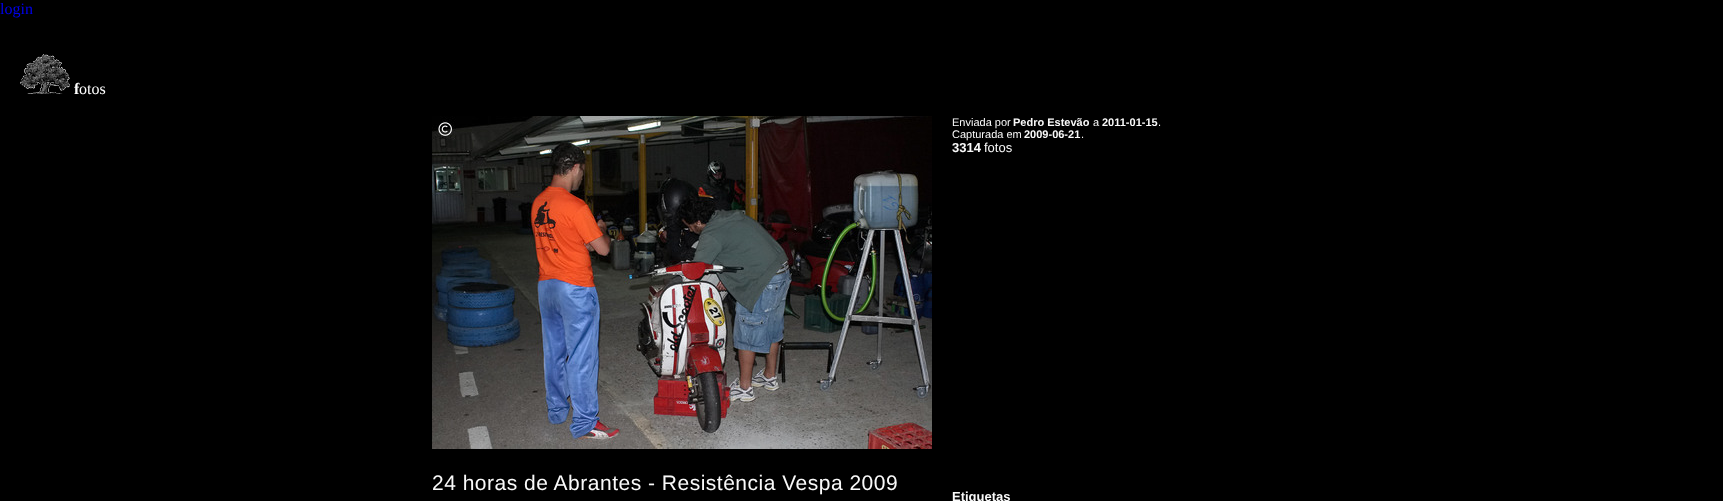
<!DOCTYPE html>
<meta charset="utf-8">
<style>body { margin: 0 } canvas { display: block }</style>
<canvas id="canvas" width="1723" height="501"></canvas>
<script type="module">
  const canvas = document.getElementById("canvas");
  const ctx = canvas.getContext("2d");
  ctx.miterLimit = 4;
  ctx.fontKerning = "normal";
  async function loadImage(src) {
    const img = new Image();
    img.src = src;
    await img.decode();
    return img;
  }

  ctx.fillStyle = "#000000";
  ctx.fillRect(0, 0, 1723, 501);
  ctx.font = "16px Liberation Serif";
  ctx.fillStyle = "#0000ee";
  ctx.fillText("login", 0, 14);
  ctx.drawImage(await loadImage("img1.png"), 20, 54, 50, 40);
  ctx.font = "bold 16px Liberation Serif";
  ctx.fillStyle = "#ffffff";
  ctx.fillText("f", 74, 94);
  ctx.font = "16px Liberation Serif";
  ctx.fillText("otos", 79, 94);
  ctx.drawImage(await loadImage("img2.png"), 432, 116, 500, 333);
  ctx.letterSpacing = "0.5px";
  ctx.font = "21px Liberation Sans";
  ctx.fillStyle = "#f9f9f9";
  ctx.fillText("24 horas de Abrantes - Resistência Vespa 2009", 432, 490);
  ctx.letterSpacing = "0px";
  ctx.font = "11px Liberation Sans";
  ctx.fillText("Enviada por", 952, 126);
  ctx.font = "bold 11px Liberation Sans";
  ctx.fillText("Pedro Estevão", 1013, 126);
  ctx.font = "11px Liberation Sans";
  ctx.fillText("a", 1093, 126);
  ctx.font = "bold 11px Liberation Sans";
  ctx.fillText("2011-01-15", 1102, 126);
  ctx.font = "11px Liberation Sans";
  ctx.fillText(".", 1158, 126);
  ctx.fillText("Capturada em", 952, 138);
  ctx.font = "bold 11px Liberation Sans";
  ctx.fillText("2009-06-21", 1024, 138);
  ctx.font = "11px Liberation Sans";
  ctx.fillText(".", 1081, 138);
  ctx.font = "bold 13px Liberation Sans";
  ctx.fillText("3314", 952, 152);
  ctx.font = "13px Liberation Sans";
  ctx.fillText("fotos", 984, 152);
  ctx.font = "bold 13px Liberation Sans";
  ctx.fillText("Etiquetas", 952, 501);
</script>
